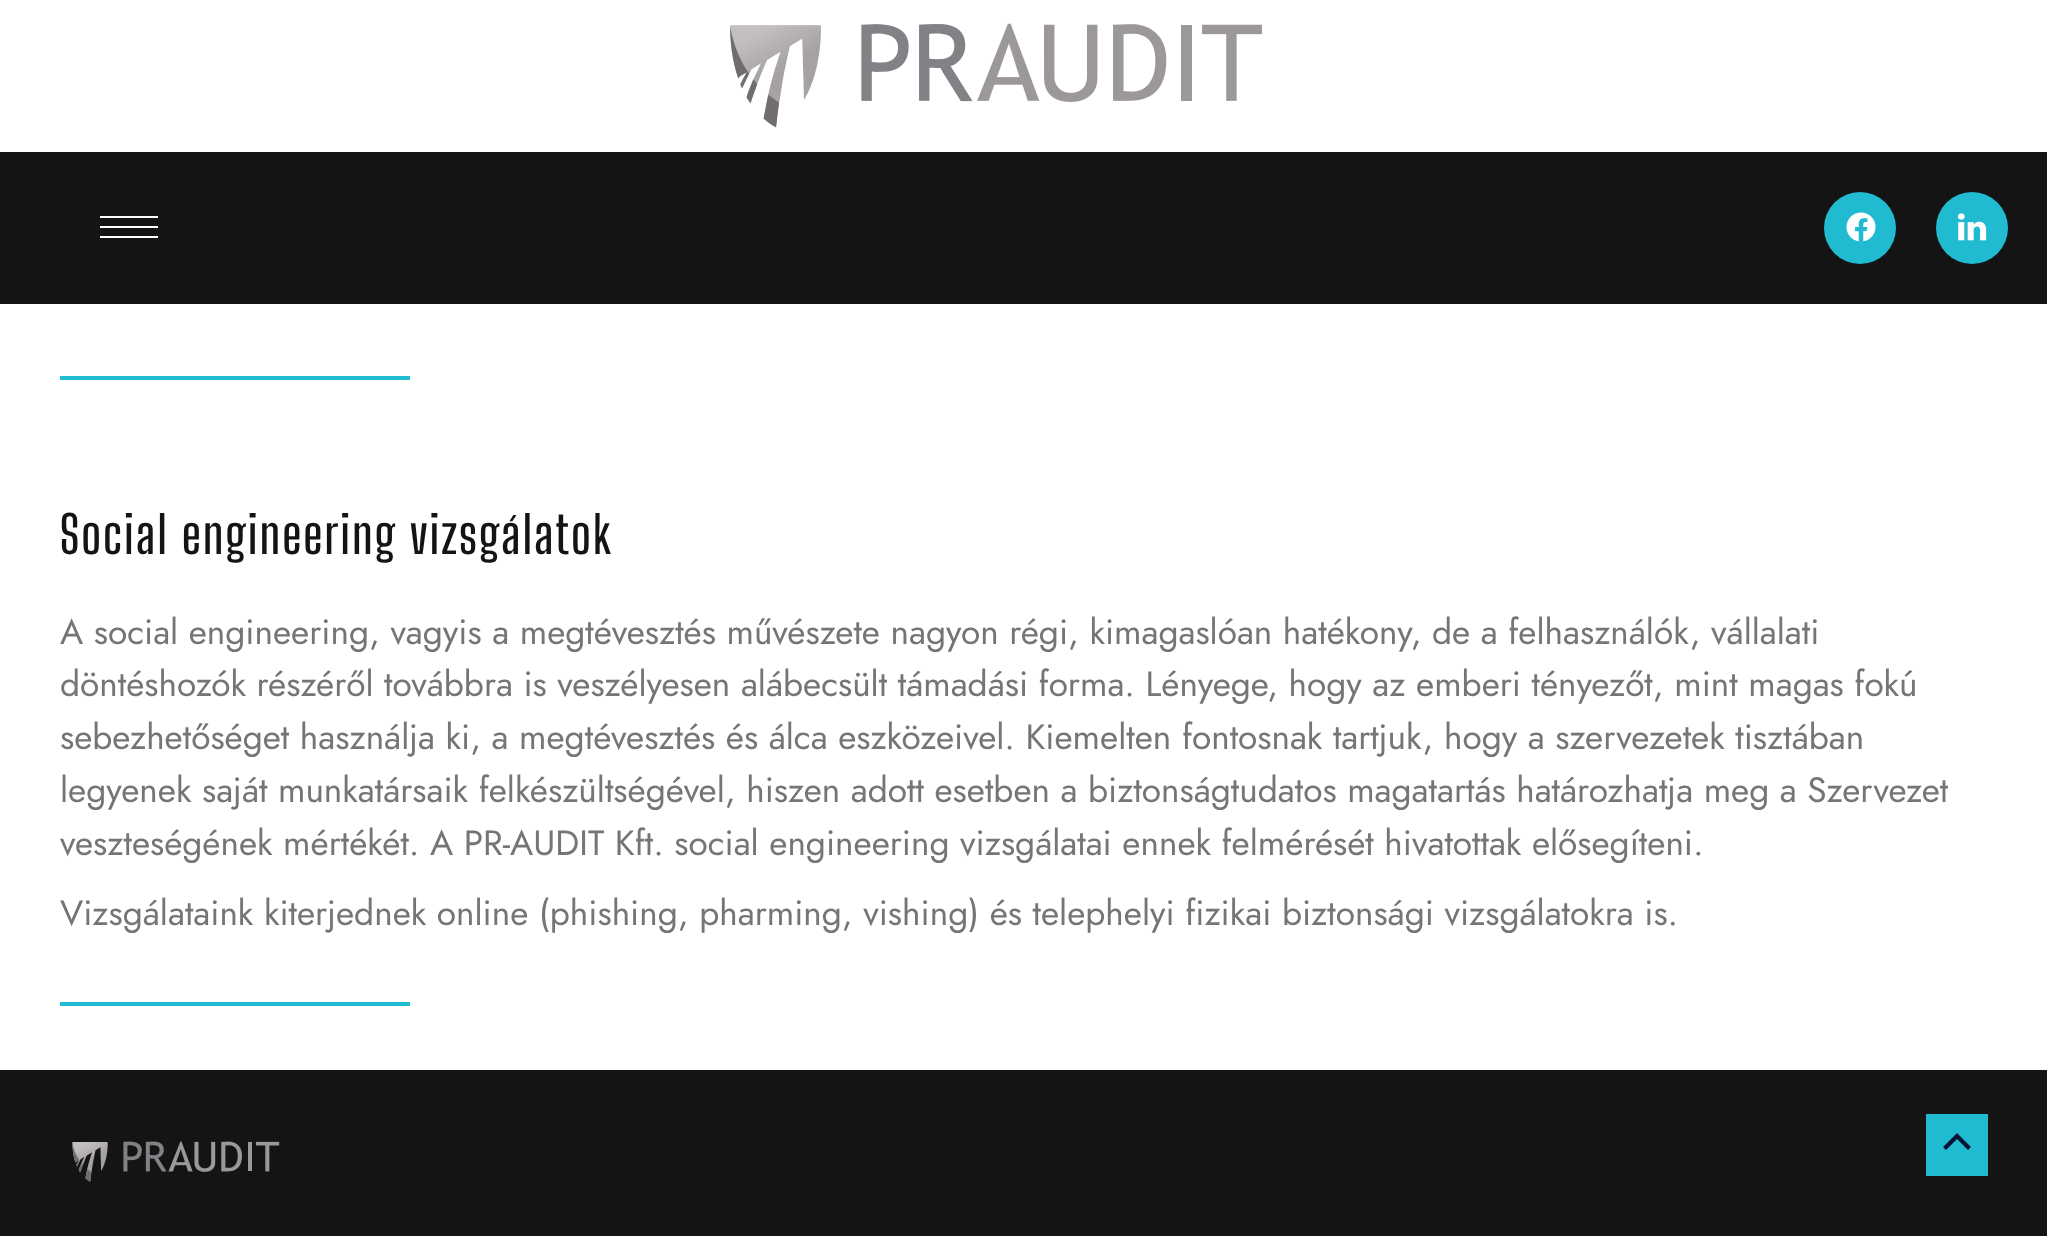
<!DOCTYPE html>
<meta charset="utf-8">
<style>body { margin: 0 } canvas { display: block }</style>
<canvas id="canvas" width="2047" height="1236"></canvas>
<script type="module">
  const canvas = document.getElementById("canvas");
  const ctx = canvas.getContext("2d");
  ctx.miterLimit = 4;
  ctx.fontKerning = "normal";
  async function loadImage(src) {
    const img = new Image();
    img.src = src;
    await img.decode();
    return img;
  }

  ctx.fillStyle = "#ffffff";
  ctx.fillRect(0, 0, 2047, 1236);
  ctx.drawImage(await loadImage("img1.png"), 730, 23, 532, 105);
  ctx.fillStyle = "#141414";
  ctx.fillRect(0, 152, 2047, 152);
  ctx.fillStyle = "#ffffff";
  ctx.fillRect(100, 216, 58, 2);
  ctx.fillRect(100, 226, 58, 2);
  ctx.fillRect(100, 236, 58, 2);
  ctx.fillStyle = "#20bad1";
  ctx.beginPath();
  ctx.arc(1860, 228, 36, 0, Math.PI * 2);
  ctx.fill();
  ctx.drawImage(await loadImage("img2.png"), 1846, 212, 30, 30);
  ctx.beginPath();
  ctx.arc(1972, 228, 36, 0, Math.PI * 2);
  ctx.fill();
  ctx.drawImage(await loadImage("img3.png"), 1957, 213, 30, 28);
  ctx.fillRect(60, 376, 350, 4);
  ctx.letterSpacing = "2px";
  ctx.font = "600 51.25px Big Shoulders Display";
  ctx.fillStyle = "#141414";
  ctx.fillText("Social engineering vizsgálatok", 60, 554);
  ctx.letterSpacing = "0px";
  ctx.font = "35.2px Jost";
  ctx.fillStyle = "#757575";
  ctx.fillText("A social engineering, vagyis a megtévesztés művészete nagyon régi, kimagaslóan hatékony, de a felhasználók, vállalati", 60, 644);
  ctx.fillText("döntéshozók részéről továbbra is veszélyesen alábecsült támadási forma. Lényege, hogy az emberi tényezőt, mint magas fokú", 60, 696);
  ctx.fillText("sebezhetőséget használja ki, a megtévesztés és álca eszközeivel. Kiemelten fontosnak tartjuk, hogy a szervezetek tisztában", 60, 749);
  ctx.fillText("legyenek saját munkatársaik felkészültségével, hiszen adott esetben a biztonságtudatos magatartás határozhatja meg a Szervezet", 60, 802);
  ctx.fillText("veszteségének mértékét. A PR-AUDIT Kft. social engineering vizsgálatai ennek felmérését hivatottak elősegíteni.", 60, 855);
  ctx.fillText("Vizsgálataink kiterjednek online (phishing, pharming, vishing) és telephelyi fizikai biztonsági vizsgálatokra is.", 60, 925);
  ctx.fillStyle = "#20bad1";
  ctx.fillRect(60, 1002, 350, 4);
  ctx.fillStyle = "#141414";
  ctx.fillRect(0, 1070, 2047, 166);
  ctx.drawImage(await loadImage("img4.png"), 72, 1141, 208, 41);
  ctx.fillStyle = "#20bad1";
  ctx.fillRect(1926, 1114, 62, 62);
  ctx.fillStyle = "#051635";
  ctx.beginPath();
  ctx.moveTo(1971, 1147);
  ctx.lineTo(1957, 1133);
  ctx.lineTo(1943, 1147);
  ctx.lineTo(1946, 1150);
  ctx.lineTo(1957, 1139);
  ctx.lineTo(1968, 1150);
  ctx.closePath();
  ctx.fill();
</script>
